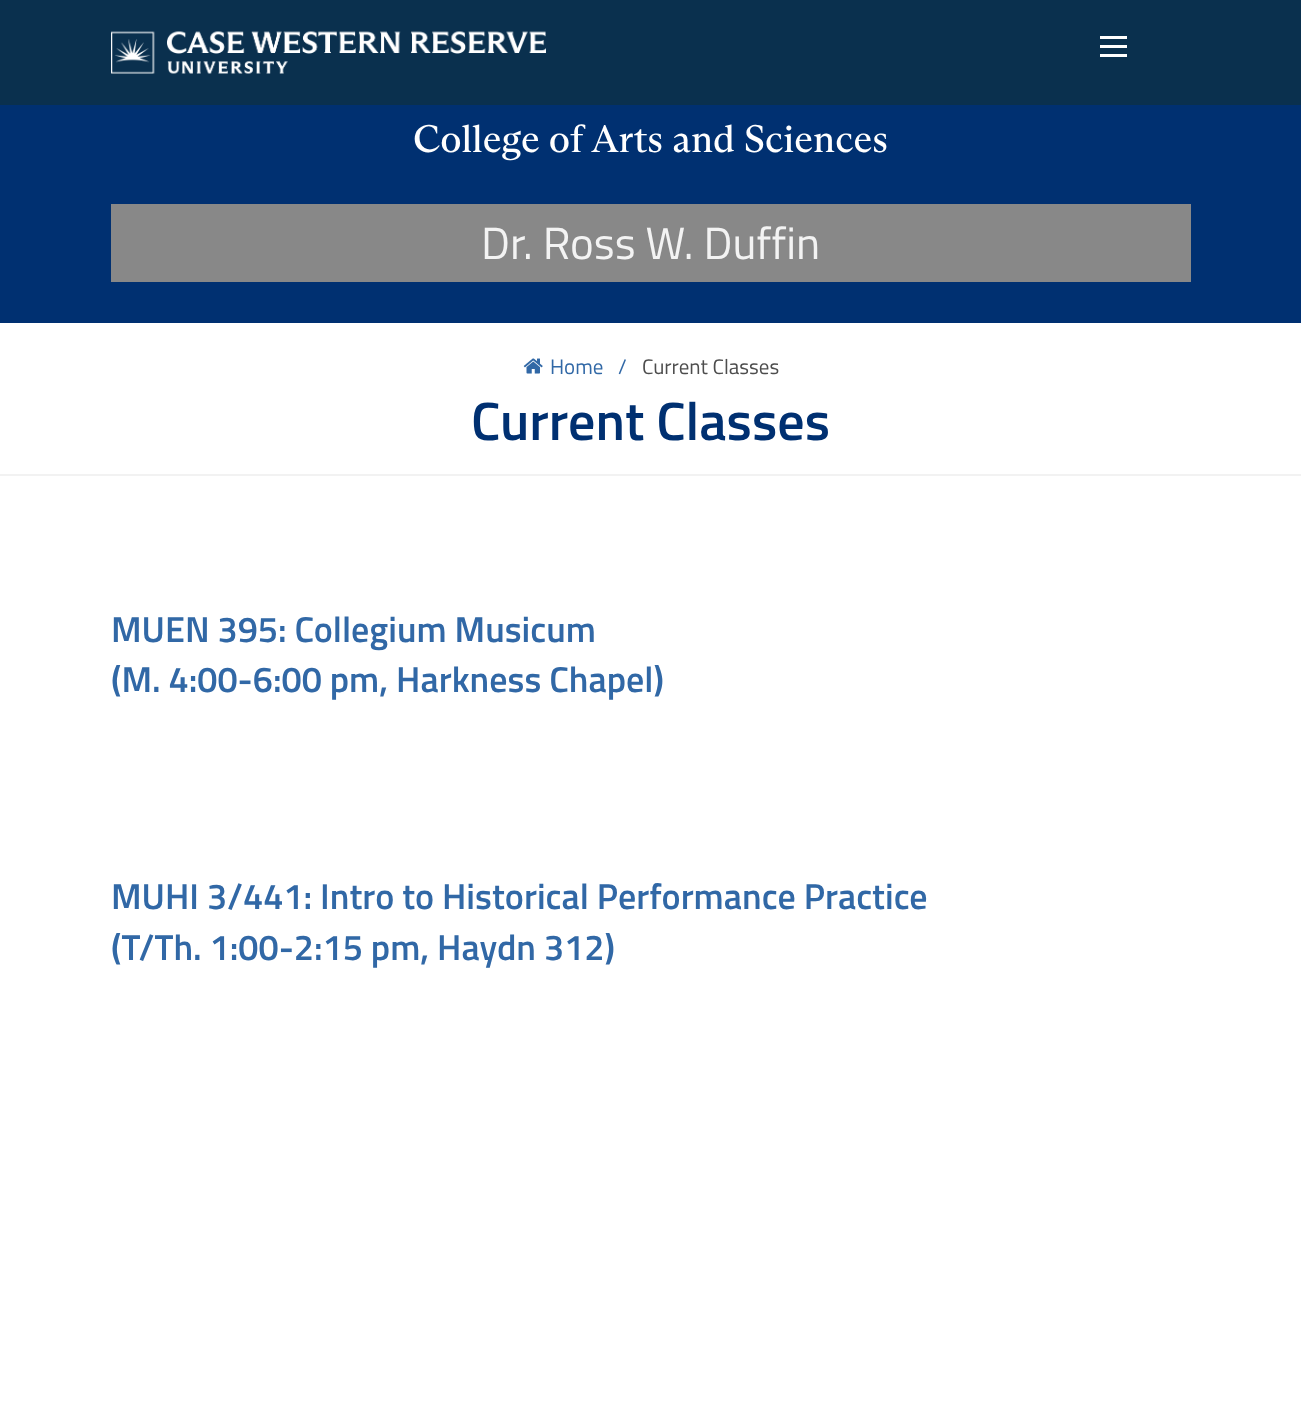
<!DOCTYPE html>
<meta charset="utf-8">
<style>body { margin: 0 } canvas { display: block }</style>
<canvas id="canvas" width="1301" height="1412"></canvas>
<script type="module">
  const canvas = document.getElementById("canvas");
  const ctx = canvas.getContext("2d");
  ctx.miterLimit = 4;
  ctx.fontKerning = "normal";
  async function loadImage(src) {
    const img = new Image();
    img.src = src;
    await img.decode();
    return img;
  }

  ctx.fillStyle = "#ffffff";
  ctx.fillRect(0, 0, 1301, 1412);
  ctx.fillStyle = "#0a304e";
  ctx.fillRect(0, 0, 1301, 105);
  ctx.drawImage(await loadImage("img1.png"), 111, 31, 435, 43);
  ctx.fillStyle = "#ffffff";
  ctx.fillRect(1100, 45, 27, 3);
  ctx.fillRect(1100, 36, 27, 3);
  ctx.fillRect(1100, 54, 27, 3);
  ctx.fillStyle = "#003071";
  ctx.fillRect(0, 105, 1301, 218);
  ctx.font = "38.4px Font";
  ctx.fillStyle = "#ffffff";
  ctx.fillText("College of Arts and Sciences", 413, 152);
  ctx.fillStyle = "#888888";
  ctx.fillRect(111, 204, 1080, 78);
  ctx.font = "45px Titillium Web";
  ctx.fillStyle = "#f3f3f3";
  ctx.fillText("Dr. Ross W. Duffin", 481, 259);
  ctx.fillStyle = "#f2f2f2";
  ctx.fillRect(0, 474, 1301, 2);
  ctx.drawImage(await loadImage("img2.png"), 523, 358, 20, 16);
  ctx.font = "21px Titillium Web";
  ctx.fillStyle = "#3168a6";
  ctx.fillText("Home", 550, 374);
  ctx.fillText("/", 618, 374);
  ctx.fillStyle = "#4d4d4d";
  ctx.fillText("Current Classes", 642, 374);
  ctx.font = "600 54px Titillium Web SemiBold";
  ctx.fillStyle = "#003071";
  ctx.fillText("Current Classes", 471, 440);
  ctx.font = "600 36px Titillium Web SemiBold";
  ctx.fillStyle = "#3168a6";
  ctx.fillText("MUEN 395: Collegium Musicum", 111, 642);
  ctx.fillText("(M. 4:00-6:00 pm, Harkness Chapel)", 111, 692);
  ctx.fillText("MUHI 3/441: Intro to Historical Performance Practice", 111, 909);
  ctx.fillText("(T/Th. 1:00-2:15 pm, Haydn 312)", 111, 960);
</script>
